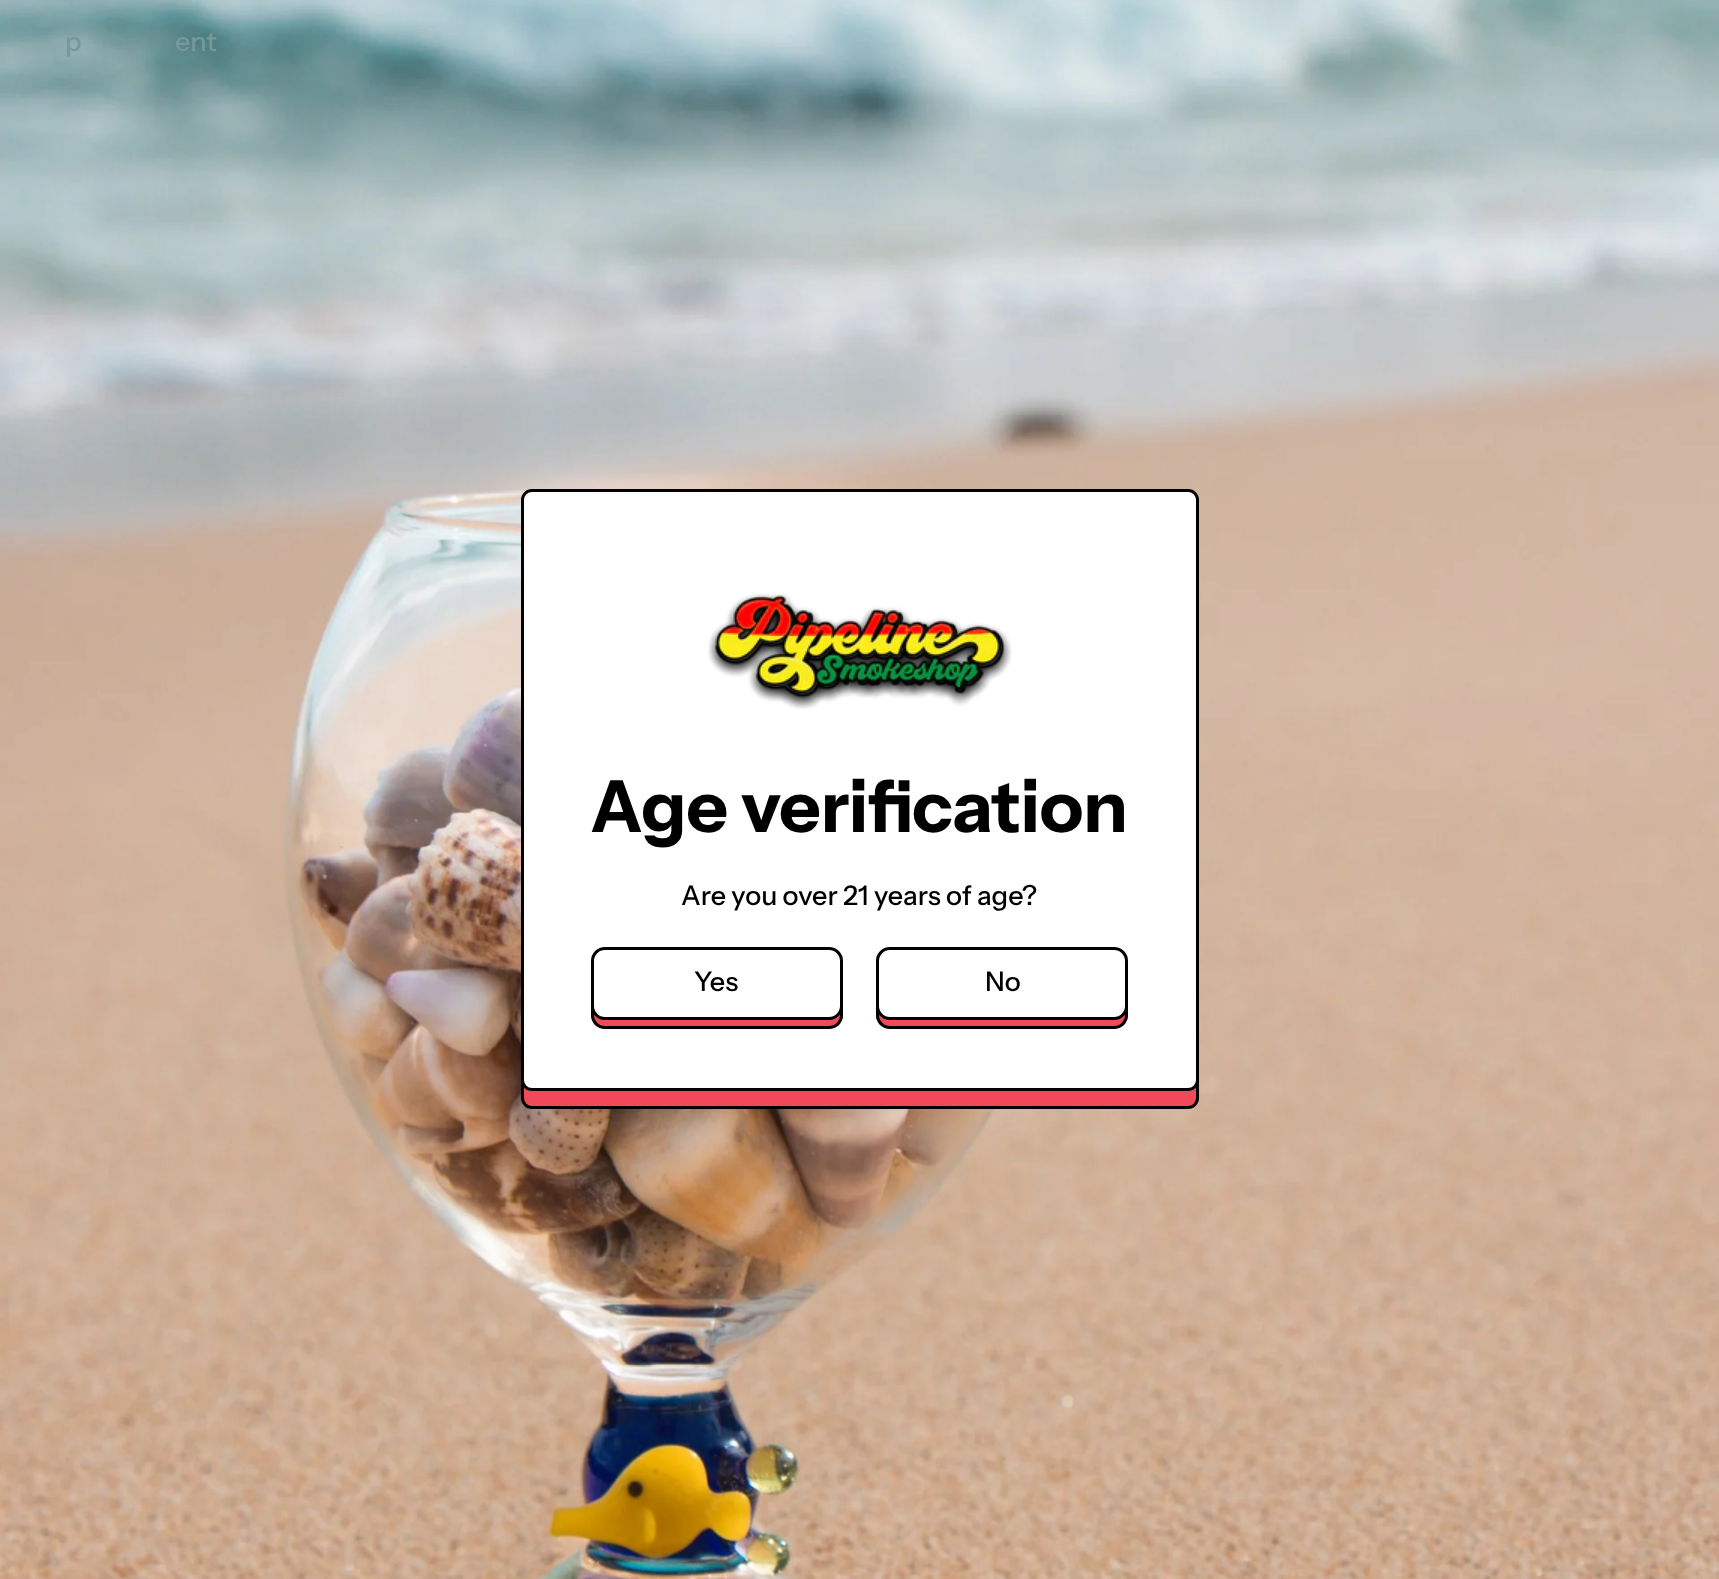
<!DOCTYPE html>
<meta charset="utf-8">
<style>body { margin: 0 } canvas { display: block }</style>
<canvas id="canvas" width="1719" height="1579"></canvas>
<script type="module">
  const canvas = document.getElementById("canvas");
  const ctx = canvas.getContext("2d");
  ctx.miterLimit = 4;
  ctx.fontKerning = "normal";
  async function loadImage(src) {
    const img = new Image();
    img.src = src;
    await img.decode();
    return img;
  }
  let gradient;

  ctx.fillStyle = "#ffffff";
  ctx.fillRect(0, 0, 1719, 1579);
  ctx.drawImage(await loadImage("img1.png"), 0, 0, 1719, 1579);
  ctx.font = "500 27px Instrument Sans";
  ctx.fillStyle = "#74999c";
  ctx.fillText("p", 65, 51);
  ctx.fillText("ent", 175, 51);
  gradient = ctx.createLinearGradient(860, 507, 860, 1109);
  gradient.addColorStop(0.1, "#ddff77");
  gradient.addColorStop(0.54, "#fd7457");
  gradient.addColorStop(0.92, "#ef495a");
  ctx.fillStyle = gradient;
  ctx.beginPath();
  ctx.roundRect(522.5, 508.5, 675, 599, 9.5);
  ctx.fill();
  ctx.strokeStyle = "#000000";
  ctx.lineWidth = 3;
  ctx.stroke();
  ctx.fillStyle = "#ffffff";
  ctx.beginPath();
  ctx.roundRect(522.5, 490.5, 675, 599, 9.5);
  ctx.fill();
  ctx.stroke();
  ctx.drawImage(await loadImage("img2.png"), 708, 593, 304, 116);
  ctx.font = "bold 72px Instrument Sans";
  ctx.fillStyle = "#000000";
  ctx.fillText("Age verification", 590, 832);
  ctx.font = "500 27px Instrument Sans";
  ctx.fillText("Are you over 21 years of age?", 681, 905);
  ctx.save();
  ctx.beginPath();
  ctx.roundRect(591, 956, 252, 73, 14);
  ctx.clip();
  gradient = ctx.createLinearGradient(717, 959, 717, 1026);
  gradient.addColorStop(0.1, "#ddff77");
  gradient.addColorStop(0.54, "#fd7457");
  gradient.addColorStop(0.92, "#ef495a");
  ctx.fillStyle = gradient;
  ctx.fillRect(591, 1014, 252, 12);
  ctx.restore();
  ctx.beginPath();
  ctx.roundRect(592.5, 957.5, 249, 70, 12.5);
  ctx.stroke();
  ctx.fillStyle = "#ffffff";
  ctx.beginPath();
  ctx.roundRect(592.5, 948.5, 249, 70, 12.5);
  ctx.fill();
  ctx.stroke();
  ctx.fillStyle = "#000000";
  ctx.fillText("Yes", 694, 991);
  ctx.save();
  ctx.beginPath();
  ctx.roundRect(876, 956, 252, 73, 14);
  ctx.clip();
  gradient = ctx.createLinearGradient(1002, 959, 1002, 1026);
  gradient.addColorStop(0.1, "#ddff77");
  gradient.addColorStop(0.54, "#fd7457");
  gradient.addColorStop(0.92, "#ef495a");
  ctx.fillStyle = gradient;
  ctx.fillRect(876, 1014, 252, 12);
  ctx.restore();
  ctx.beginPath();
  ctx.roundRect(877.5, 957.5, 249, 70, 12.5);
  ctx.stroke();
  ctx.fillStyle = "#ffffff";
  ctx.beginPath();
  ctx.roundRect(877.5, 948.5, 249, 70, 12.5);
  ctx.fill();
  ctx.stroke();
  ctx.fillStyle = "#000000";
  ctx.fillText("No", 985, 991);
</script>
